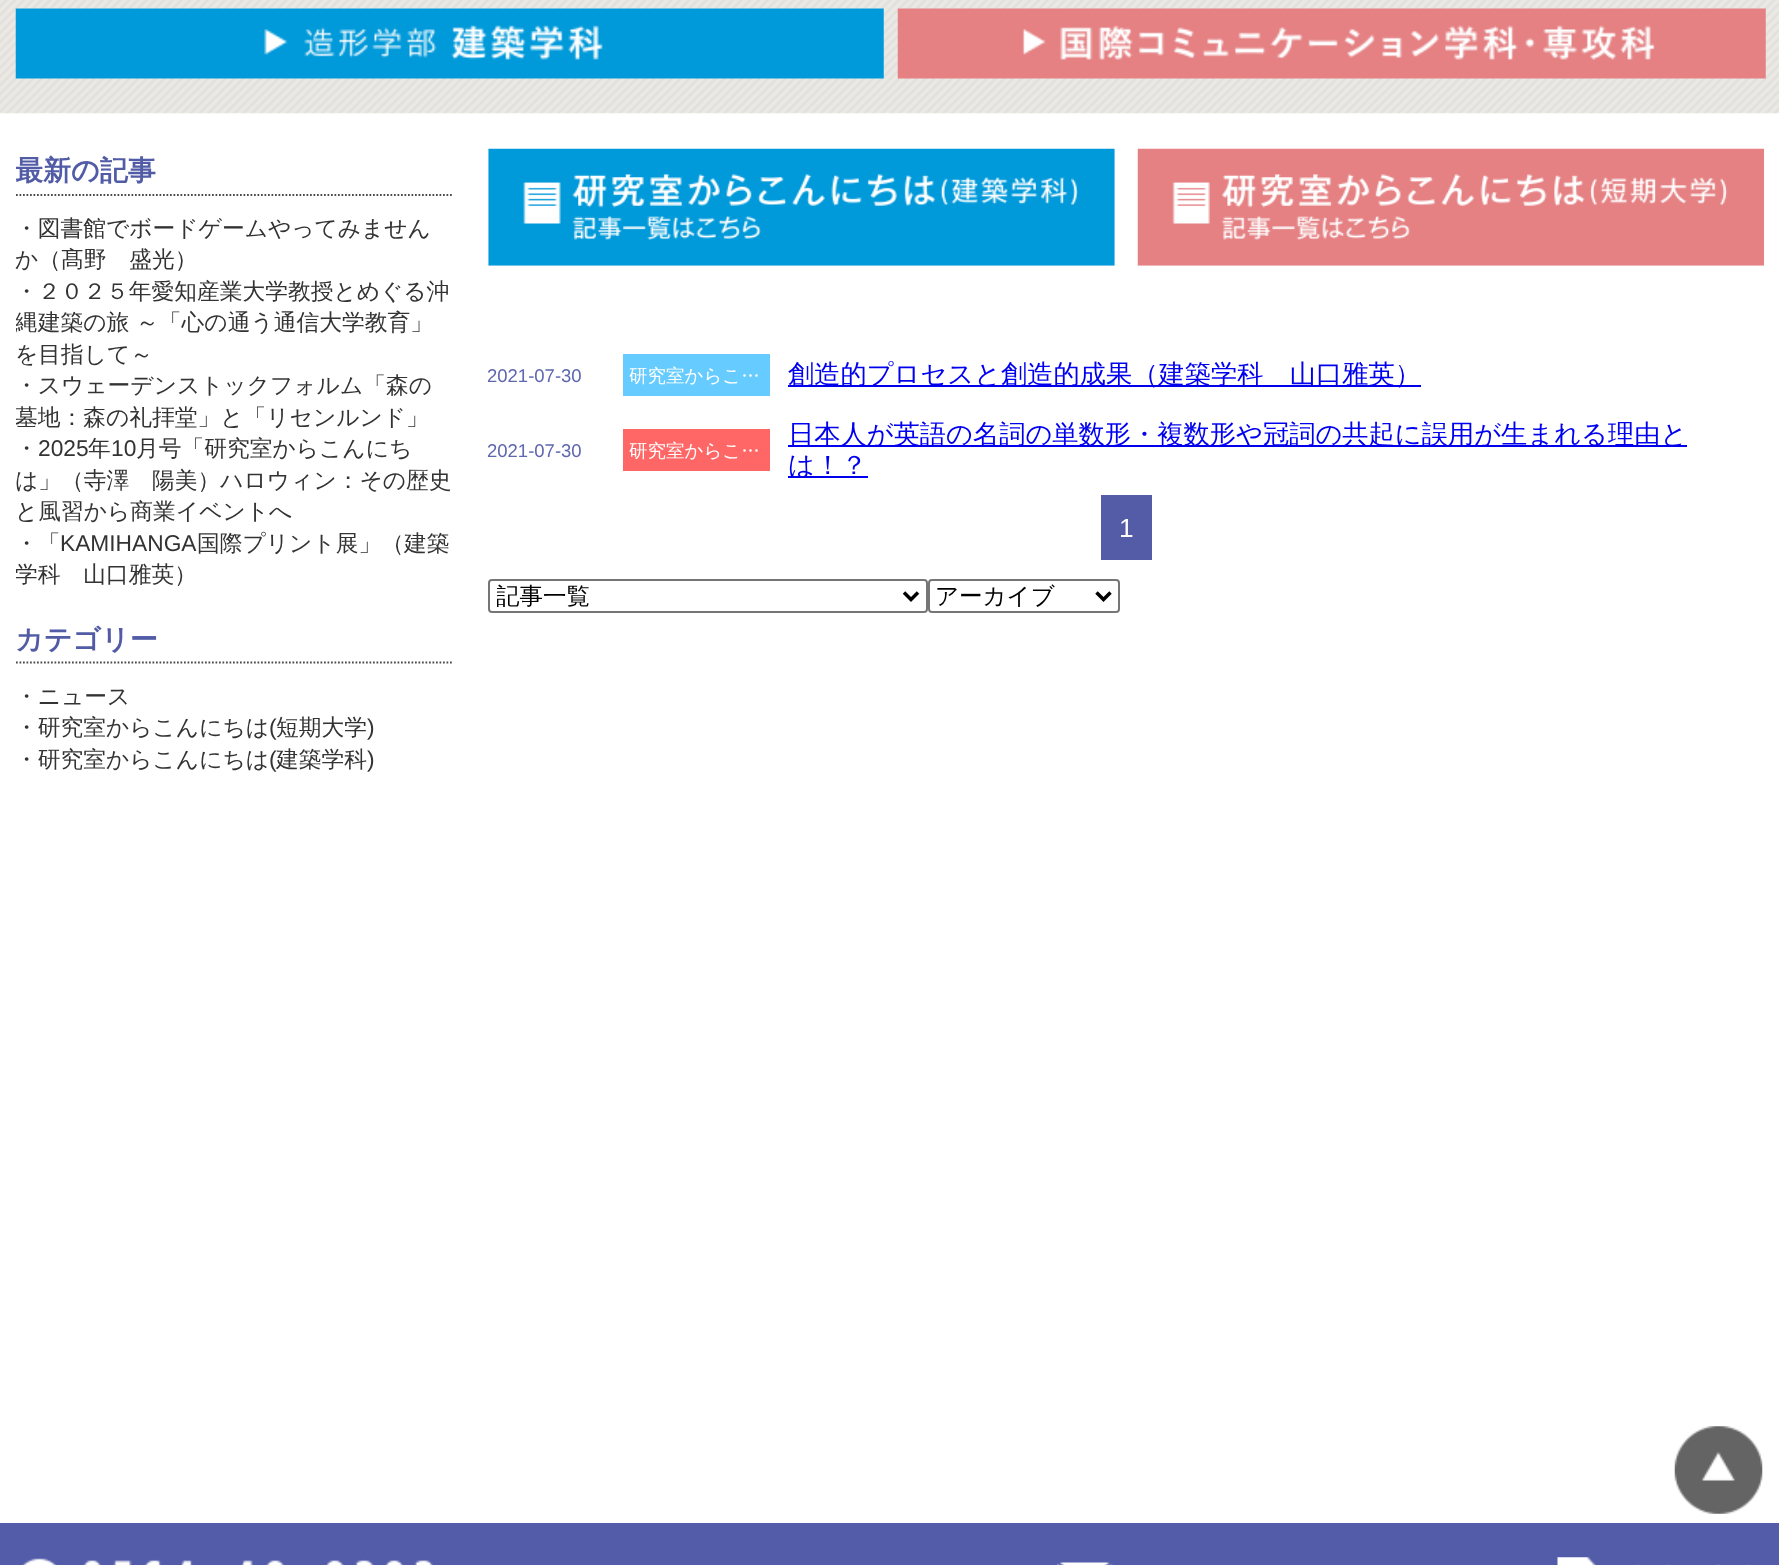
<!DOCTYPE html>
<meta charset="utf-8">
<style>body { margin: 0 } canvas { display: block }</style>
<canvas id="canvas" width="1779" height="1565"></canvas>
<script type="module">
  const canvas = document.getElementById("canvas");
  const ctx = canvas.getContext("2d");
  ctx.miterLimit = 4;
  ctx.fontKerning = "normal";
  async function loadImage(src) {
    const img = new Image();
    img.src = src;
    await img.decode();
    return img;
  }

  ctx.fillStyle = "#ffffff";
  ctx.fillRect(0, 0, 1779, 1565);
  ctx.drawImage(await loadImage("img1.png"), 0, 0, 1779, 114);
  ctx.drawImage(await loadImage("img2.png"), 15, 8, 869, 71);
  ctx.drawImage(await loadImage("img3.png"), 897, 8, 869, 71);
  ctx.beginPath();
  ctx.moveTo(16, 195);
  ctx.lineTo(453, 195);
  ctx.strokeStyle = "#4b4b4b";
  ctx.lineWidth = 1.8;
  ctx.setLineDash([1.75, 1.75]);
  ctx.stroke();
  ctx.save();
  ctx.beginPath();
  ctx.rect(16, 149, 437, 443);
  ctx.clip();
  ctx.font = "bold 28px WenQuanYi Zen Hei";
  ctx.fillStyle = "#525ca6";
  ctx.fillText("最新の記事", 15, 180);
  ctx.restore();
  ctx.font = "500 22.75px WenQuanYi Zen Hei";
  ctx.fillStyle = "#333333";
  ctx.fillText("・図書館でボードゲームやってみません", 15, 236);
  ctx.fillText("か（髙野　盛光）", 15, 267);
  ctx.fillText("・２０２５年愛知産業大学教授とめぐる沖", 15, 299);
  ctx.save();
  ctx.beginPath();
  ctx.rect(16, 214, 437, 378);
  ctx.clip();
  ctx.fillText("縄建築の旅 ～「心の通う通信大学教育」", 15, 330);
  ctx.restore();
  ctx.fillText("を目指して～", 15, 362);
  ctx.fillText("・スウェーデンストックフォルム「森の", 15, 393);
  ctx.save();
  ctx.beginPath();
  ctx.rect(16, 214, 437, 378);
  ctx.clip();
  ctx.fillText("墓地：森の礼拝堂」と「リセンルンド」", 15, 425);
  ctx.restore();
  ctx.fillText("・", 15, 456);
  ctx.font = "22.75px Liberation Sans";
  ctx.fillText("2025", 38, 456);
  ctx.font = "500 22.75px WenQuanYi Zen Hei";
  ctx.fillText("年", 88, 456);
  ctx.font = "22.75px Liberation Sans";
  ctx.fillText("10", 111, 456);
  ctx.font = "500 22.75px WenQuanYi Zen Hei";
  ctx.fillText("月号「研究室からこんにち", 136, 456);
  ctx.fillText("は」（寺澤　陽美）ハロウィン：その歴史", 15, 488);
  ctx.fillText("と風習から商業イベントへ", 15, 519);
  ctx.fillText("・「", 15, 551);
  ctx.font = "22.75px Liberation Sans";
  ctx.fillText("KAMIHANGA", 60, 551);
  ctx.font = "500 22.75px WenQuanYi Zen Hei";
  ctx.fillText("国際プリント展」（建築", 197, 551);
  ctx.save();
  ctx.beginPath();
  ctx.rect(16, 214, 437, 378);
  ctx.clip();
  ctx.fillText("学科　山口雅英）", 15, 582);
  ctx.restore();
  ctx.beginPath();
  ctx.moveTo(16, 662.5);
  ctx.lineTo(453, 662.5);
  ctx.stroke();
  ctx.font = "bold 28px WenQuanYi Zen Hei";
  ctx.fillStyle = "#525ca6";
  ctx.fillText("カテゴリー", 15, 649);
  ctx.font = "500 22.75px WenQuanYi Zen Hei";
  ctx.fillStyle = "#333333";
  ctx.fillText("・ニュース", 15, 704);
  ctx.fillText("・研究室からこんにちは", 15, 735);
  ctx.font = "22.75px Liberation Sans";
  ctx.fillText("(", 269, 735);
  ctx.font = "500 22.75px WenQuanYi Zen Hei";
  ctx.fillText("短期大学", 276, 735);
  ctx.font = "22.75px Liberation Sans";
  ctx.fillText(")", 367, 735);
  ctx.font = "500 22.75px WenQuanYi Zen Hei";
  ctx.fillText("・研究室からこんにちは", 15, 767);
  ctx.font = "22.75px Liberation Sans";
  ctx.fillText("(", 269, 767);
  ctx.font = "500 22.75px WenQuanYi Zen Hei";
  ctx.fillText("建築学科", 276, 767);
  ctx.font = "22.75px Liberation Sans";
  ctx.fillText(")", 367, 767);
  ctx.drawImage(await loadImage("img4.png"), 488, 148, 627, 118);
  ctx.drawImage(await loadImage("img5.png"), 1137, 148, 627, 118);
  ctx.font = "18.5px Liberation Sans";
  ctx.fillStyle = "#5e67af";
  ctx.fillText("2021-07-30", 487, 382);
  ctx.fillStyle = "#66ccff";
  ctx.fillRect(623, 354, 147, 42);
  ctx.font = "500 18.5px WenQuanYi Zen Hei";
  ctx.fillStyle = "#ffffff";
  ctx.fillText("研究室からこ…", 629, 382);
  ctx.fillStyle = "#0000ee";
  ctx.fillRect(788, 385, 633, 2);
  ctx.font = "500 26.25px WenQuanYi Zen Hei";
  ctx.fillText("創造的プロセスと創造的成果（建築学科　山口雅英）", 788, 383);
  ctx.font = "18.5px Liberation Sans";
  ctx.fillStyle = "#5e67af";
  ctx.fillText("2021-07-30", 487, 457);
  ctx.fillStyle = "#ff6666";
  ctx.fillRect(623, 429, 147, 42);
  ctx.font = "500 18.5px WenQuanYi Zen Hei";
  ctx.fillStyle = "#ffffff";
  ctx.fillText("研究室からこ…", 629, 457);
  ctx.fillStyle = "#0000ee";
  ctx.fillRect(788, 445, 899, 2);
  ctx.font = "500 26.25px WenQuanYi Zen Hei";
  ctx.fillText("日本人が英語の名詞の単数形・複数形や冠詞の共起に誤用が生まれる理由と", 788, 443);
  ctx.fillRect(788, 476, 80, 2);
  ctx.fillText("は！？", 788, 474);
  ctx.fillStyle = "#545ca7";
  ctx.fillRect(1101, 495, 51, 65);
  ctx.font = "26.25px Liberation Sans";
  ctx.fillStyle = "#ffffff";
  ctx.fillText("1", 1119, 537);
  ctx.beginPath();
  ctx.roundRect(489, 580, 438, 32, 3);
  ctx.strokeStyle = "#767676";
  ctx.lineWidth = 2;
  ctx.setLineDash([]);
  ctx.stroke();
  ctx.beginPath();
  ctx.moveTo(904, 592.5);
  ctx.lineTo(911, 599.5);
  ctx.lineTo(918, 592.5);
  ctx.strokeStyle = "#000000";
  ctx.lineWidth = 3.5;
  ctx.stroke();
  ctx.save();
  ctx.beginPath();
  ctx.rect(497, 581, 401, 30);
  ctx.clip();
  ctx.font = "500 23.5px WenQuanYi Zen Hei";
  ctx.fillStyle = "#000000";
  ctx.fillText("記事一覧", 496, 604);
  ctx.restore();
  ctx.beginPath();
  ctx.roundRect(929, 580, 190, 32, 3);
  ctx.strokeStyle = "#767676";
  ctx.lineWidth = 2;
  ctx.stroke();
  ctx.beginPath();
  ctx.moveTo(1096.5, 592.5);
  ctx.lineTo(1103.5, 599.5);
  ctx.lineTo(1110.5, 592.5);
  ctx.strokeStyle = "#000000";
  ctx.lineWidth = 3.5;
  ctx.stroke();
  ctx.font = "500 23.5px WenQuanYi Zen Hei";
  ctx.fillStyle = "#000000";
  ctx.fillText("アーカイブ", 935, 604);
  ctx.drawImage(await loadImage("img6.png"), 1674, 1426, 89, 88);
  ctx.fillStyle = "#535ca8";
  ctx.fillRect(0, 1523, 1779, 42);
  ctx.drawImage(await loadImage("img7.png"), 22, 1558, 411, 7);
  ctx.drawImage(await loadImage("img8.png"), 1057, 1562, 57, 3);
  ctx.drawImage(await loadImage("img9.png"), 1557, 1557, 193, 8);
</script>
